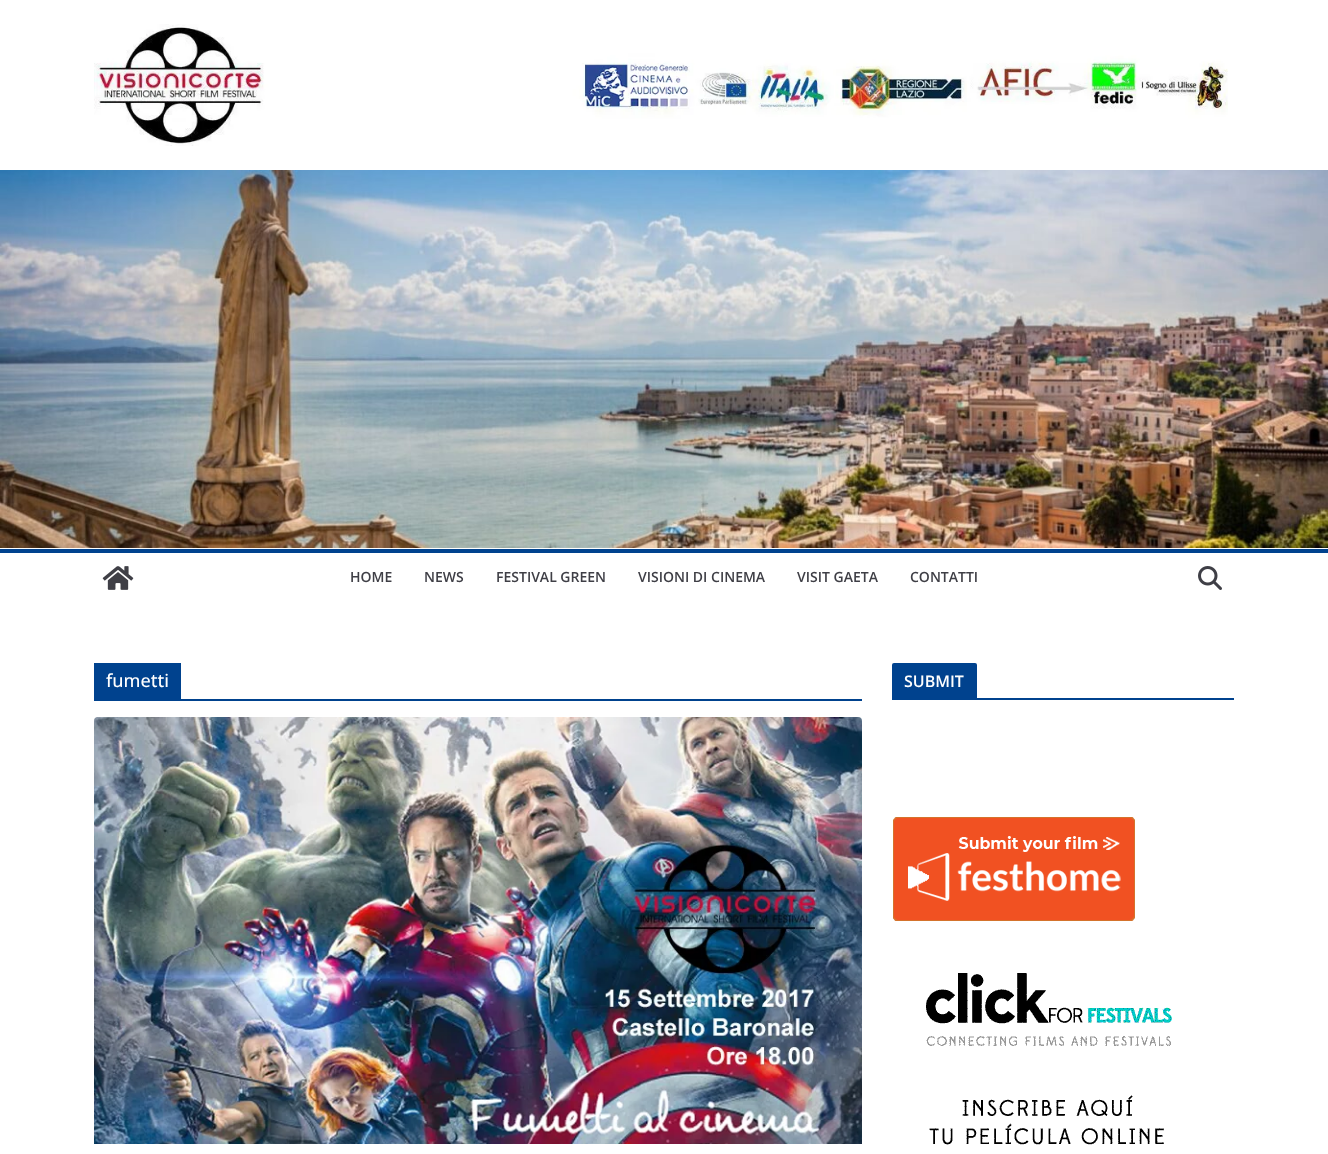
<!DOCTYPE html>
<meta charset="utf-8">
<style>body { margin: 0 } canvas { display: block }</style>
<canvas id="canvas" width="1328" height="1154"></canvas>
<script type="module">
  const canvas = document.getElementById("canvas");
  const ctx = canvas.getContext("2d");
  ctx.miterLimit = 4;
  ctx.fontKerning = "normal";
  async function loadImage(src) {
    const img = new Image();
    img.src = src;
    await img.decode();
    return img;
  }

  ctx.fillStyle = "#ffffff";
  ctx.fillRect(0, 0, 1328, 1154);
  ctx.drawImage(await loadImage("img1.png"), 94, 24, 1134, 122);
  ctx.drawImage(await loadImage("img2.png"), 0, 170, 1328, 378);
  ctx.fillStyle = "#00428e";
  ctx.fillRect(0, 549, 1328, 4);
  ctx.drawImage(await loadImage("img3.png"), 102, 566, 32, 24);
  ctx.font = "600 14px Open Sans";
  ctx.fillStyle = "#3f3f46";
  ctx.fillText("HOME", 350, 582);
  ctx.fillText("NEWS", 424, 582);
  ctx.fillText("FESTIVAL GREEN", 496, 582);
  ctx.fillText("VISIONI DI CINEMA", 638, 582);
  ctx.fillText("VISIT GAETA", 797, 582);
  ctx.fillText("CONTATTI", 910, 582);
  ctx.drawImage(await loadImage("img4.png"), 1198, 566, 24, 24);
  ctx.fillStyle = "#00428e";
  ctx.fillRect(94, 699, 768, 2);
  ctx.fillRect(94, 663, 87, 36);
  ctx.font = "500 18px Open Sans";
  ctx.fillStyle = "#ffffff";
  ctx.fillText("fumetti", 106, 687);
  ctx.drawImage(await loadImage("img5.png"), 94, 717, 768, 427);
  ctx.fillStyle = "#00428e";
  ctx.fillRect(892, 698, 342, 2);
  ctx.beginPath();
  ctx.roundRect(892, 663, 85, 35, [2, 2, 0, 0]);
  ctx.fill();
  ctx.font = "600 16px Open Sans";
  ctx.fillStyle = "#ffffff";
  ctx.fillText("SUBMIT", 904, 687);
  ctx.drawImage(await loadImage("img6.png"), 893, 817, 242, 104);
  ctx.drawImage(await loadImage("img7.png"), 926, 973, 246, 172);
</script>
